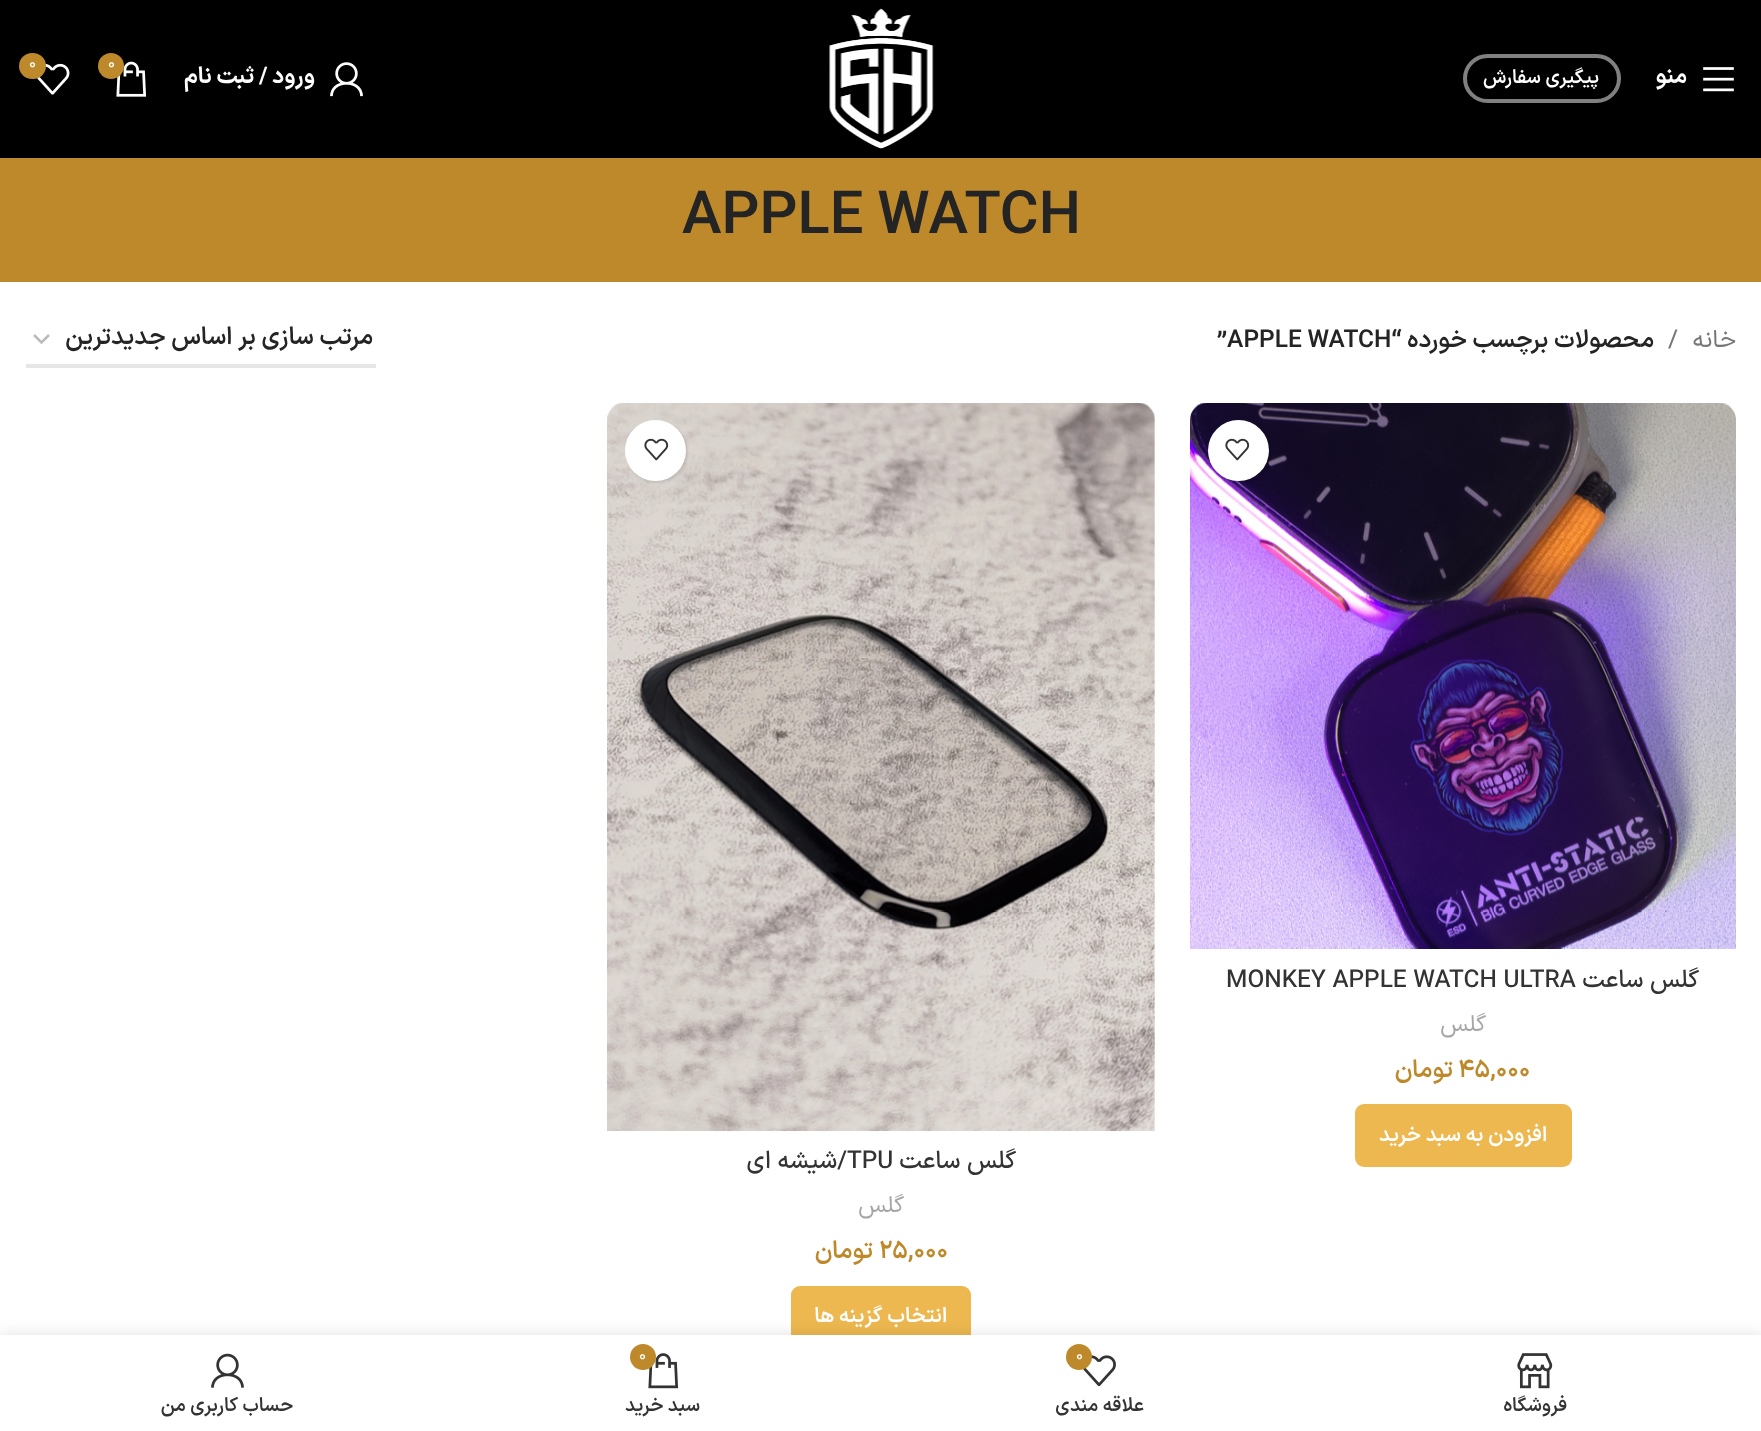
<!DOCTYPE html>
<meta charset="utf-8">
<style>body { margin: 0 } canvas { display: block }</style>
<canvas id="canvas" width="1761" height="1431"></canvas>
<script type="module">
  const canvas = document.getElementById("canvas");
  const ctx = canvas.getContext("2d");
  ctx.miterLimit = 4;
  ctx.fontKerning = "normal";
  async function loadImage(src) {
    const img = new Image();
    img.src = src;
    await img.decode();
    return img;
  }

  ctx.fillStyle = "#ffffff";
  ctx.fillRect(0, 0, 1761, 1431);
  ctx.fillStyle = "#000000";
  ctx.fillRect(0, 0, 1761, 158);
  ctx.drawImage(await loadImage("img1.png"), 1703, 67, 31, 25);
  ctx.direction = "rtl";
  ctx.font = "bold 22.75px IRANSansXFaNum";
  ctx.fillStyle = "#ffffff";
  ctx.fillText("منو", 1687, 83);
  ctx.beginPath();
  ctx.roundRect(1465, 56, 154, 45, 22.5);
  ctx.strokeStyle = "#808080";
  ctx.lineWidth = 4;
  ctx.stroke();
  ctx.font = "600 19.25px IRANSansXFaNum";
  ctx.fillText("پیگیری سفارش", 1599, 83);
  ctx.drawImage(await loadImage("img2.png"), 829, 8, 105, 141);
  ctx.drawImage(await loadImage("img3.png"), 330, 62, 33, 35);
  ctx.font = "bold 22.75px IRANSansXFaNum";
  ctx.fillText("ورود / ثبت نام", 315, 83);
  ctx.drawImage(await loadImage("img4.png"), 116, 61, 31, 36);
  ctx.fillStyle = "#be892b";
  ctx.beginPath();
  ctx.arc(111, 66, 13, 0, Math.PI * 2);
  ctx.fill();
  ctx.direction = "ltr";
  ctx.font = "16px IRANSansXFaNum";
  ctx.fillStyle = "#ffffff";
  ctx.fillText("0", 108, 68);
  ctx.drawImage(await loadImage("img5.png"), 37, 63, 33, 32);
  ctx.fillStyle = "#be892b";
  ctx.beginPath();
  ctx.roundRect(19, 53, 27, 26, 13);
  ctx.fill();
  ctx.fillStyle = "#ffffff";
  ctx.fillText("0", 29, 68);
  ctx.fillStyle = "#be892b";
  ctx.fillRect(0, 158, 1761, 124);
  ctx.font = "600 59.5px IRANSansXFaNum";
  ctx.fillStyle = "#242424";
  ctx.fillText("APPLE WATCH", 682, 233);
  ctx.direction = "rtl";
  ctx.font = "24.5px IRANSansXFaNum";
  ctx.fillStyle = "#767676";
  ctx.fillText("خانه", 1736, 347);
  ctx.direction = "ltr";
  ctx.fillText("/", 1668, 347);
  ctx.direction = "rtl";
  ctx.font = "600 24.5px IRANSansXFaNum";
  ctx.fillStyle = "#242424";
  ctx.fillText("محصولات برچسب خورده", 1654, 347);
  ctx.direction = "ltr";
  ctx.fillText("”APPLE WATCH“", 1217, 347);
  ctx.beginPath();
  ctx.moveTo(34, 335);
  ctx.lineTo(41.5, 342.5);
  ctx.lineTo(49, 335);
  ctx.strokeStyle = "#bbbbbb";
  ctx.lineWidth = 2.5;
  ctx.stroke();
  ctx.fillStyle = "#e6e6e6";
  ctx.fillRect(26, 364, 350, 4);
  ctx.direction = "rtl";
  ctx.fillStyle = "#242424";
  ctx.fillText("مرتب سازی بر اساس جدیدترین", 373, 344);
  ctx.drawImage(await loadImage("img6.png"), 1190, 403, 546, 546);
  ctx.fillStyle = "rgba(0, 0, 0, 0.1)";
  ctx.filter = "blur(1px)";
  ctx.beginPath();
  ctx.roundRect(1209, 422, 62, 61, 30.5);
  ctx.fill();
  ctx.filter = "none";
  ctx.fillStyle = "#ffffff";
  ctx.beginPath();
  ctx.arc(1238.5, 450.5, 30.5, 0, Math.PI * 2);
  ctx.fill();
  ctx.drawImage(await loadImage("img7.png"), 1225, 438, 25, 23);
  ctx.font = "500 24.5px IRANSansXFaNum";
  ctx.fillStyle = "#333333";
  ctx.fillText("گلس ساعت", 1699, 987);
  ctx.direction = "ltr";
  ctx.fillText("MONKEY APPLE WATCH ULTRA", 1226, 987);
  ctx.direction = "rtl";
  ctx.font = "23px IRANSansXFaNum";
  ctx.fillStyle = "#a5a5a5";
  ctx.fillText("گلس", 1486, 1031);
  ctx.direction = "ltr";
  ctx.font = "600 24.5px IRANSansXFaNum";
  ctx.fillStyle = "#be892b";
  ctx.fillText("45,000", 1458, 1077);
  ctx.direction = "rtl";
  ctx.fillText("تومان", 1453, 1077);
  ctx.fillStyle = "#edb84f";
  ctx.beginPath();
  ctx.roundRect(1355, 1104, 217, 63, 9);
  ctx.fill();
  ctx.font = "600 21px IRANSansXFaNum";
  ctx.fillStyle = "#ffffff";
  ctx.fillText("افزودن به سبد خرید", 1547, 1141);
  ctx.drawImage(await loadImage("img8.png"), 607, 403, 548, 728);
  ctx.fillStyle = "rgba(0, 0, 0, 0.1)";
  ctx.filter = "blur(1px)";
  ctx.beginPath();
  ctx.roundRect(627, 422, 61, 61, 30.5);
  ctx.fill();
  ctx.filter = "none";
  ctx.fillStyle = "#ffffff";
  ctx.beginPath();
  ctx.arc(655.5, 450.5, 30.5, 0, Math.PI * 2);
  ctx.fill();
  ctx.drawImage(await loadImage("img7.png"), 644, 438, 25, 23);
  ctx.font = "500 24.5px IRANSansXFaNum";
  ctx.fillStyle = "#333333";
  ctx.fillText("گلس ساعت", 1016, 1168);
  ctx.direction = "ltr";
  ctx.fillText("TPU", 847, 1168);
  ctx.direction = "rtl";
  ctx.fillText("/شیشه ای", 847, 1168);
  ctx.font = "23px IRANSansXFaNum";
  ctx.fillStyle = "#a5a5a5";
  ctx.fillText("گلس", 904, 1212);
  ctx.direction = "ltr";
  ctx.font = "600 24.5px IRANSansXFaNum";
  ctx.fillStyle = "#be892b";
  ctx.fillText("25,000", 879, 1258);
  ctx.direction = "rtl";
  ctx.fillText("تومان", 873, 1258);
  ctx.fillStyle = "#edb84f";
  ctx.beginPath();
  ctx.roundRect(791, 1286, 180, 63, 9);
  ctx.fill();
  ctx.font = "600 21px IRANSansXFaNum";
  ctx.fillStyle = "#ffffff";
  ctx.fillText("انتخاب گزینه ها", 947, 1322);
  ctx.fillStyle = "rgba(0, 0, 0, 0.12)";
  ctx.filter = "blur(8px)";
  ctx.beginPath();
  ctx.rect(0, 1335, 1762, 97);
  ctx.fill();
  ctx.filter = "none";
  ctx.fillStyle = "#ffffff";
  ctx.fillRect(0, 1335, 1761, 96);
  ctx.drawImage(await loadImage("img9.png"), 1517, 1353, 36, 36);
  ctx.font = "600 19.25px IRANSansXFaNum";
  ctx.fillStyle = "#333333";
  ctx.fillText("فروشگاه", 1567, 1411);
  ctx.drawImage(await loadImage("img10.png"), 1083, 1355, 33, 31);
  ctx.fillStyle = "#be892b";
  ctx.beginPath();
  ctx.arc(1079, 1357, 13, 0, Math.PI * 2);
  ctx.fill();
  ctx.direction = "ltr";
  ctx.font = "16px IRANSansXFaNum";
  ctx.fillStyle = "#ffffff";
  ctx.fillText("0", 1076, 1360);
  ctx.direction = "rtl";
  ctx.font = "600 19.25px IRANSansXFaNum";
  ctx.fillStyle = "#333333";
  ctx.fillText("علاقه مندی", 1144, 1411);
  ctx.drawImage(await loadImage("img11.png"), 648, 1353, 31, 36);
  ctx.fillStyle = "#be892b";
  ctx.beginPath();
  ctx.arc(643, 1357, 13, 0, Math.PI * 2);
  ctx.fill();
  ctx.direction = "ltr";
  ctx.font = "16px IRANSansXFaNum";
  ctx.fillStyle = "#ffffff";
  ctx.fillText("0", 639, 1360);
  ctx.direction = "rtl";
  ctx.font = "600 19.25px IRANSansXFaNum";
  ctx.fillStyle = "#333333";
  ctx.fillText("سبد خرید", 700, 1411);
  ctx.drawImage(await loadImage("img12.png"), 211, 1353, 33, 35);
  ctx.fillText("حساب کاربری من", 293, 1411);
</script>
